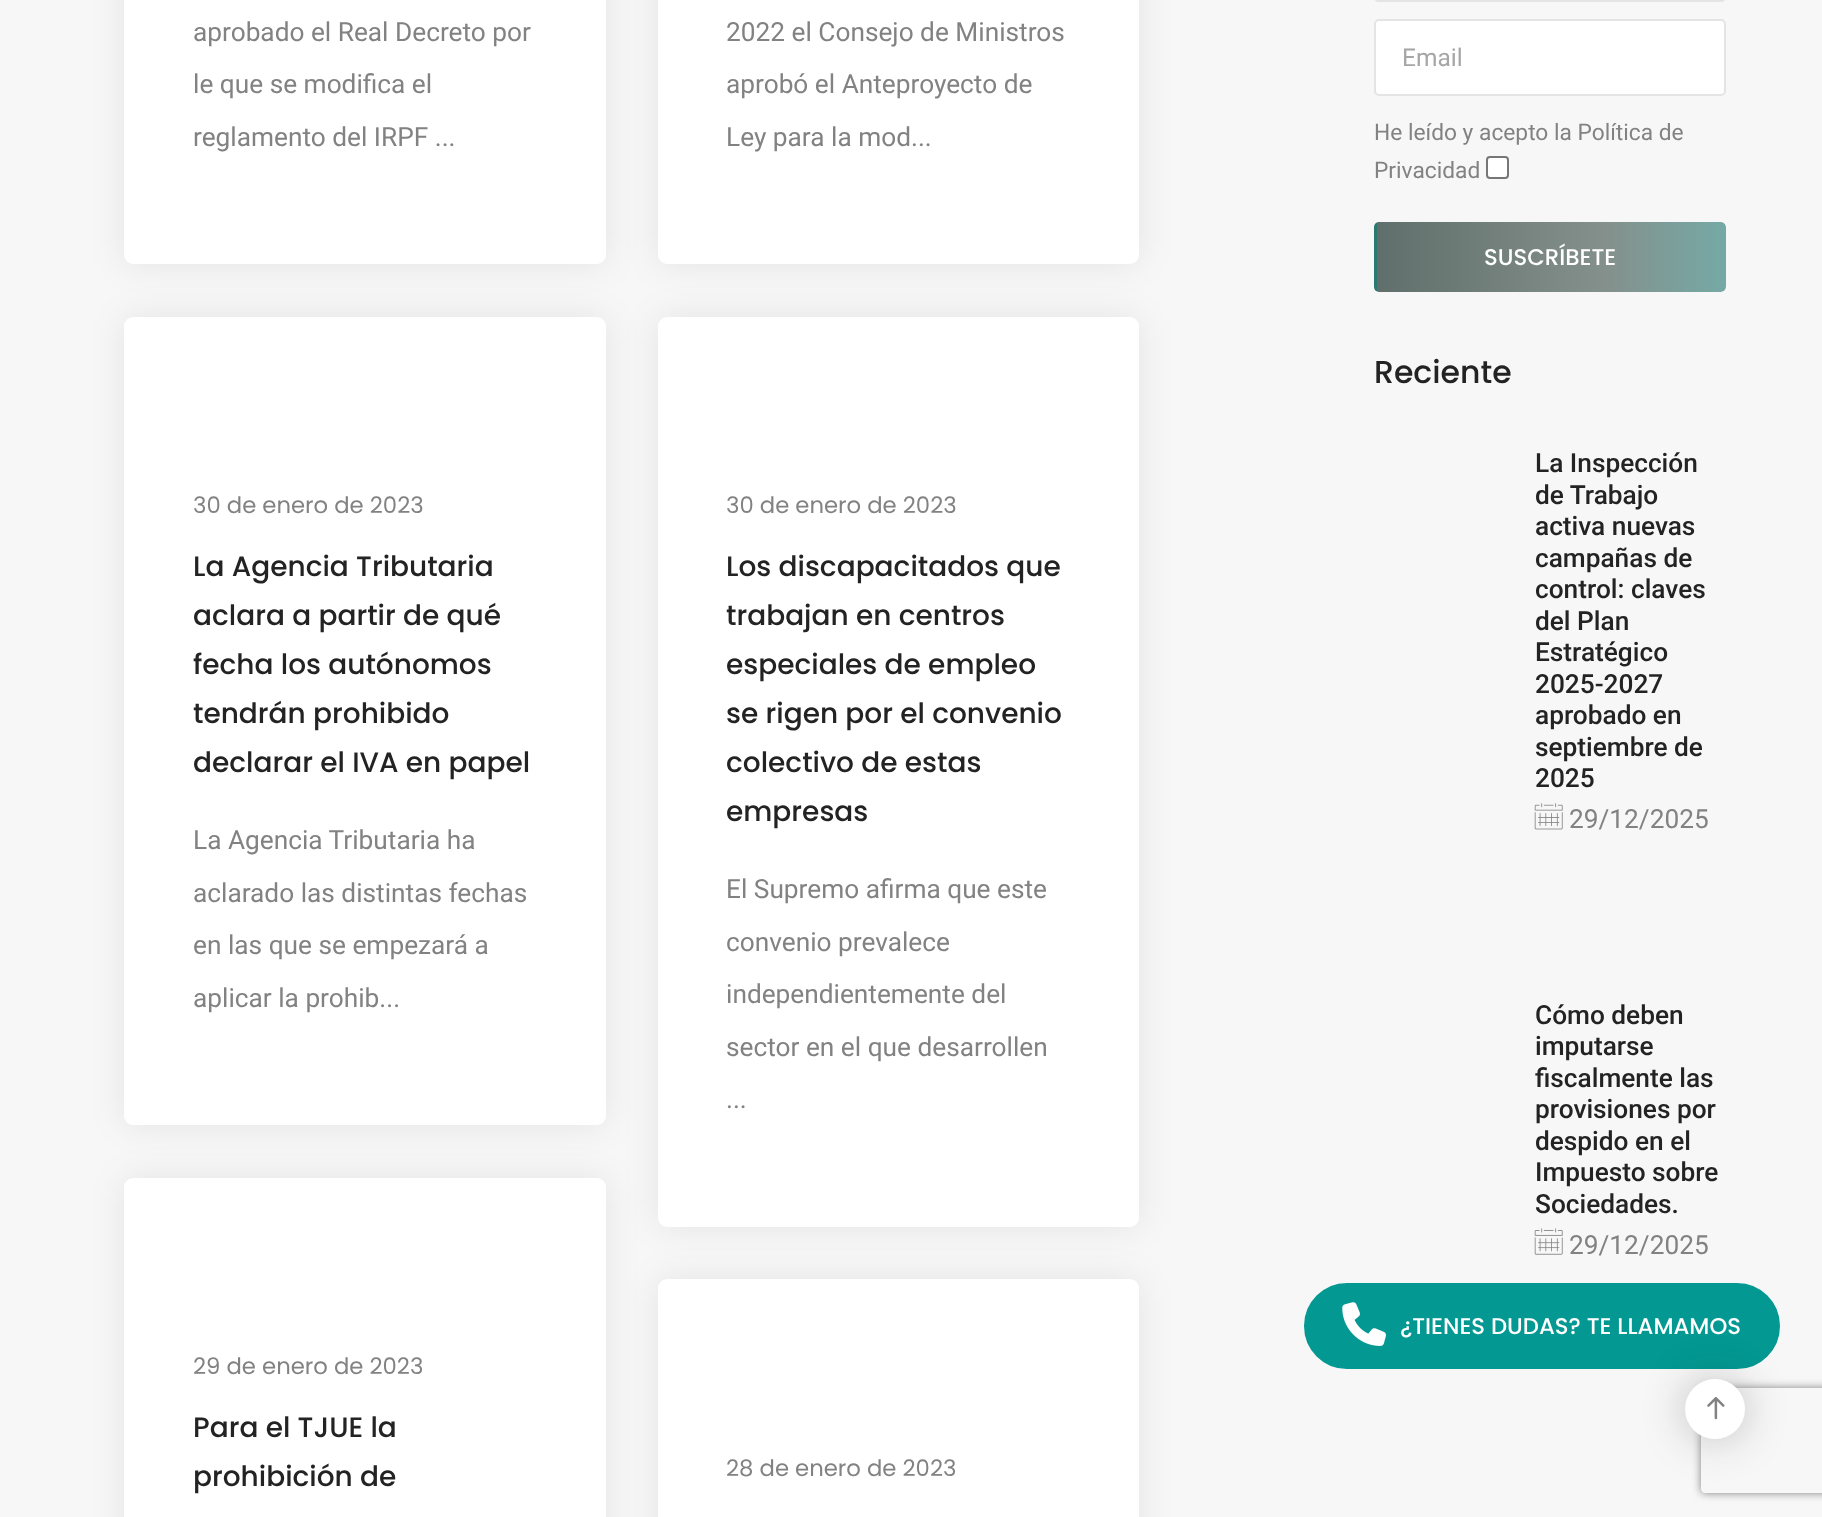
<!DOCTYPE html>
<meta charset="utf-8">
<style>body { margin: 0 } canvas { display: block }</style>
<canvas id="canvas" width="1822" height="1517"></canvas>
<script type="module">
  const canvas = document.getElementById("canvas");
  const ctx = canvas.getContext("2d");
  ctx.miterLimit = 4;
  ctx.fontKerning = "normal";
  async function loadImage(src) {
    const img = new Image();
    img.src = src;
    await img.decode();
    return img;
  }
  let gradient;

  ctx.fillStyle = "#f7f7f7";
  ctx.fillRect(0, 0, 1822, 1517);
  ctx.fillStyle = "rgba(0, 0, 0, 0.08)";
  ctx.filter = "blur(17.5px)";
  ctx.beginPath();
  ctx.roundRect(124, -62, 482, 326, 9);
  ctx.fill();
  ctx.filter = "none";
  ctx.fillStyle = "#ffffff";
  ctx.beginPath();
  ctx.roundRect(124, -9, 482, 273, 9);
  ctx.fill();
  ctx.font = "26.25px Roboto";
  ctx.fillStyle = "#828282";
  ctx.fillText("aprobado el Real Decreto por", 193, 41);
  ctx.fillText("le que se modifica el", 193, 93);
  ctx.fillText("reglamento del IRPF ...", 193, 146);
  ctx.fillStyle = "rgba(0, 0, 0, 0.08)";
  ctx.filter = "blur(17.5px)";
  ctx.beginPath();
  ctx.roundRect(658, -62, 481, 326, 9);
  ctx.fill();
  ctx.filter = "none";
  ctx.fillStyle = "#ffffff";
  ctx.beginPath();
  ctx.roundRect(658, -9, 481, 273, 9);
  ctx.fill();
  ctx.fillStyle = "#828282";
  ctx.fillText("2022 el Consejo de Ministros", 726, 41);
  ctx.fillText("aprobó el Anteproyecto de", 726, 93);
  ctx.fillText("Ley para la mod...", 726, 146);
  ctx.fillStyle = "rgba(0, 0, 0, 0.08)";
  ctx.filter = "blur(17.5px)";
  ctx.beginPath();
  ctx.roundRect(124, 317, 482, 808, 9);
  ctx.fill();
  ctx.filter = "none";
  ctx.fillStyle = "#ffffff";
  ctx.beginPath();
  ctx.roundRect(124, 317, 482, 808, 9);
  ctx.fill();
  ctx.font = "22.75px Poppins";
  ctx.fillStyle = "#828282";
  ctx.fillText("30 de enero de 2023", 193, 513);
  ctx.font = "500 28px Poppins";
  ctx.fillStyle = "#232323";
  ctx.fillText("La Agencia Tributaria", 193, 576);
  ctx.fillText("aclara a partir de qué", 193, 625);
  ctx.fillText("fecha los autónomos", 193, 674);
  ctx.fillText("tendrán prohibido", 193, 723);
  ctx.fillText("declarar el IVA en papel", 193, 772);
  ctx.font = "26.25px Roboto";
  ctx.fillStyle = "#828282";
  ctx.fillText("La Agencia Tributaria ha", 193, 849);
  ctx.fillText("aclarado las distintas fechas", 193, 902);
  ctx.fillText("en las que se empezará a", 193, 954);
  ctx.fillText("aplicar la prohib...", 193, 1007);
  ctx.fillStyle = "rgba(0, 0, 0, 0.08)";
  ctx.filter = "blur(17.5px)";
  ctx.beginPath();
  ctx.roundRect(658, 317, 481, 910, 9);
  ctx.fill();
  ctx.filter = "none";
  ctx.fillStyle = "#ffffff";
  ctx.beginPath();
  ctx.roundRect(658, 317, 481, 910, 9);
  ctx.fill();
  ctx.font = "22.75px Poppins";
  ctx.fillStyle = "#828282";
  ctx.fillText("30 de enero de 2023", 726, 513);
  ctx.font = "500 28px Poppins";
  ctx.fillStyle = "#232323";
  ctx.fillText("Los discapacitados que", 726, 576);
  ctx.fillText("trabajan en centros", 726, 625);
  ctx.fillText("especiales de empleo", 726, 674);
  ctx.fillText("se rigen por el convenio", 726, 723);
  ctx.fillText("colectivo de estas", 726, 772);
  ctx.fillText("empresas", 726, 821);
  ctx.font = "26.25px Roboto";
  ctx.fillStyle = "#828282";
  ctx.fillText("El Supremo afirma que este", 726, 898);
  ctx.fillText("convenio prevalece", 726, 951);
  ctx.fillText("independientemente del", 726, 1003);
  ctx.fillText("sector en el que desarrollen", 726, 1056);
  ctx.fillText("...", 726, 1108);
  ctx.fillStyle = "rgba(0, 0, 0, 0.08)";
  ctx.filter = "blur(17.5px)";
  ctx.beginPath();
  ctx.roundRect(124, 1178, 482, 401, 9);
  ctx.fill();
  ctx.filter = "none";
  ctx.fillStyle = "#ffffff";
  ctx.beginPath();
  ctx.roundRect(124, 1178, 482, 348, 9);
  ctx.fill();
  ctx.font = "22.75px Poppins";
  ctx.fillStyle = "#828282";
  ctx.fillText("29 de enero de 2023", 193, 1374);
  ctx.font = "500 28px Poppins";
  ctx.fillStyle = "#232323";
  ctx.fillText("Para el TJUE la", 193, 1437);
  ctx.fillText("prohibición de", 193, 1486);
  ctx.fillStyle = "rgba(0, 0, 0, 0.08)";
  ctx.filter = "blur(17.5px)";
  ctx.beginPath();
  ctx.roundRect(658, 1279, 481, 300, 9);
  ctx.fill();
  ctx.filter = "none";
  ctx.fillStyle = "#ffffff";
  ctx.beginPath();
  ctx.roundRect(658, 1279, 481, 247, 9);
  ctx.fill();
  ctx.font = "22.75px Poppins";
  ctx.fillStyle = "#828282";
  ctx.fillText("28 de enero de 2023", 726, 1476);
  ctx.beginPath();
  ctx.roundRect(1375, -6, 350, 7, 4);
  ctx.strokeStyle = "#e4e4e4";
  ctx.lineWidth = 2;
  ctx.stroke();
  ctx.fillStyle = "#ffffff";
  ctx.beginPath();
  ctx.roundRect(1375, 20, 350, 75, 4);
  ctx.fill();
  ctx.stroke();
  ctx.font = "24.5px Roboto";
  ctx.fillStyle = "#a6a6a6";
  ctx.fillText("Email", 1402, 66);
  ctx.font = "22.75px Roboto";
  ctx.fillStyle = "#828282";
  ctx.fillText("He leído y acepto la Política de", 1374, 140);
  ctx.fillText("Privacidad", 1374, 178);
  ctx.fillStyle = "#ffffff";
  ctx.beginPath();
  ctx.roundRect(1487, 157, 21, 21, 3);
  ctx.fill();
  ctx.strokeStyle = "#767676";
  ctx.stroke();
  ctx.save();
  ctx.beginPath();
  ctx.roundRect(1374, 222, 352, 70, 5);
  ctx.clip();
  gradient = ctx.createLinearGradient(688, 257, 1377, 257);
  gradient.addColorStop(0, "#606f6b");
  gradient.addColorStop(0.33, "#84908c");
  gradient.addColorStop(0.67, "#67c1bd");
  gradient.addColorStop(1, "#2a7872");
  ctx.fillStyle = gradient;
  ctx.fillRect(1374, 222, 3, 70);
  gradient = ctx.createLinearGradient(1377, 257, 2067, 257);
  gradient.addColorStop(0, "#606f6b");
  gradient.addColorStop(0.33, "#84908c");
  gradient.addColorStop(0.67, "#67c1bd");
  gradient.addColorStop(1, "#2a7872");
  ctx.fillStyle = gradient;
  ctx.beginPath();
  ctx.roundRect(1377, 222, 349, 70, [0, 5, 5, 0]);
  ctx.fill();
  ctx.restore();
  ctx.font = "500 22.75px Poppins";
  ctx.fillText("SUSCRÍBETE", 1484, 265);
  ctx.font = "500 31.5px Poppins";
  ctx.fillStyle = "#232323";
  ctx.fillText("Reciente", 1374, 383);
  ctx.font = "500 26.25px Roboto";
  ctx.fillText("La Inspección", 1535, 472);
  ctx.fillText("de Trabajo", 1535, 504);
  ctx.fillText("activa nuevas", 1535, 535);
  ctx.fillText("campañas de", 1535, 567);
  ctx.fillText("control: claves", 1535, 598);
  ctx.fillText("del Plan", 1535, 630);
  ctx.fillText("Estratégico", 1535, 661);
  ctx.fillText("2025-2027", 1535, 693);
  ctx.fillText("aprobado en", 1535, 724);
  ctx.fillText("septiembre de", 1535, 756);
  ctx.fillText("2025", 1535, 787);
  ctx.drawImage(await loadImage("img1.png"), 1534, 803, 29, 27);
  ctx.font = "26.25px Roboto";
  ctx.fillStyle = "#828282";
  ctx.fillText("29/12/2025", 1569, 828);
  ctx.font = "500 26.25px Roboto";
  ctx.fillStyle = "#232323";
  ctx.fillText("Cómo deben", 1535, 1024);
  ctx.fillText("imputarse", 1535, 1055);
  ctx.fillText("fiscalmente las", 1535, 1087);
  ctx.fillText("provisiones por", 1535, 1118);
  ctx.fillText("despido en el", 1535, 1150);
  ctx.fillText("Impuesto sobre", 1535, 1181);
  ctx.fillText("Sociedades.", 1535, 1213);
  ctx.drawImage(await loadImage("img2.png"), 1534, 1228, 29, 27);
  ctx.font = "26.25px Roboto";
  ctx.fillStyle = "#828282";
  ctx.fillText("29/12/2025", 1569, 1254);
  ctx.fillStyle = "#039892";
  ctx.beginPath();
  ctx.roundRect(1306, 1285, 472, 82, 41);
  ctx.fill();
  ctx.strokeStyle = "#039892";
  ctx.lineWidth = 4;
  ctx.stroke();
  ctx.fillStyle = "rgba(23, 23, 23, 0.25)";
  ctx.filter = "blur(22px)";
  ctx.beginPath();
  ctx.roundRect(1685, 1379, 60, 60, 30);
  ctx.fill();
  ctx.filter = "none";
  ctx.save();
  ctx.beginPath();
  ctx.moveTo(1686, 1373);
  ctx.lineTo(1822, 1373);
  ctx.lineTo(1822, 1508);
  ctx.lineTo(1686, 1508);
  ctx.closePath();
  ctx.moveTo(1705, 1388);
  ctx.lineTo(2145, 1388);
  ctx.bezierCurveTo(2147, 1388, 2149, 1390, 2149, 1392);
  ctx.lineTo(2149, 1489);
  ctx.bezierCurveTo(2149, 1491, 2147, 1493, 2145, 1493);
  ctx.lineTo(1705, 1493);
  ctx.bezierCurveTo(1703, 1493, 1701, 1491, 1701, 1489);
  ctx.lineTo(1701, 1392);
  ctx.bezierCurveTo(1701, 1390, 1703, 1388, 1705, 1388);
  ctx.closePath();
  ctx.clip("evenodd");
  ctx.fillStyle = "#808080";
  ctx.filter = "blur(4.5px)";
  ctx.beginPath();
  ctx.roundRect(1701, 1388, 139, 105, 4);
  ctx.fill();
  ctx.filter = "none";
  ctx.restore();
  ctx.fillStyle = "#ffffff";
  ctx.beginPath();
  ctx.arc(1715, 1409, 30, 0, Math.PI * 2);
  ctx.fill();
  ctx.drawImage(await loadImage("img3.png"), 1707, 1397, 18, 23);
  ctx.drawImage(await loadImage("img4.png"), 1342, 1302, 44, 44);
  ctx.font = "500 22.75px Poppins";
  ctx.fillText("¿TIENES DUDAS? TE LLAMAMOS", 1400, 1334);
</script>
